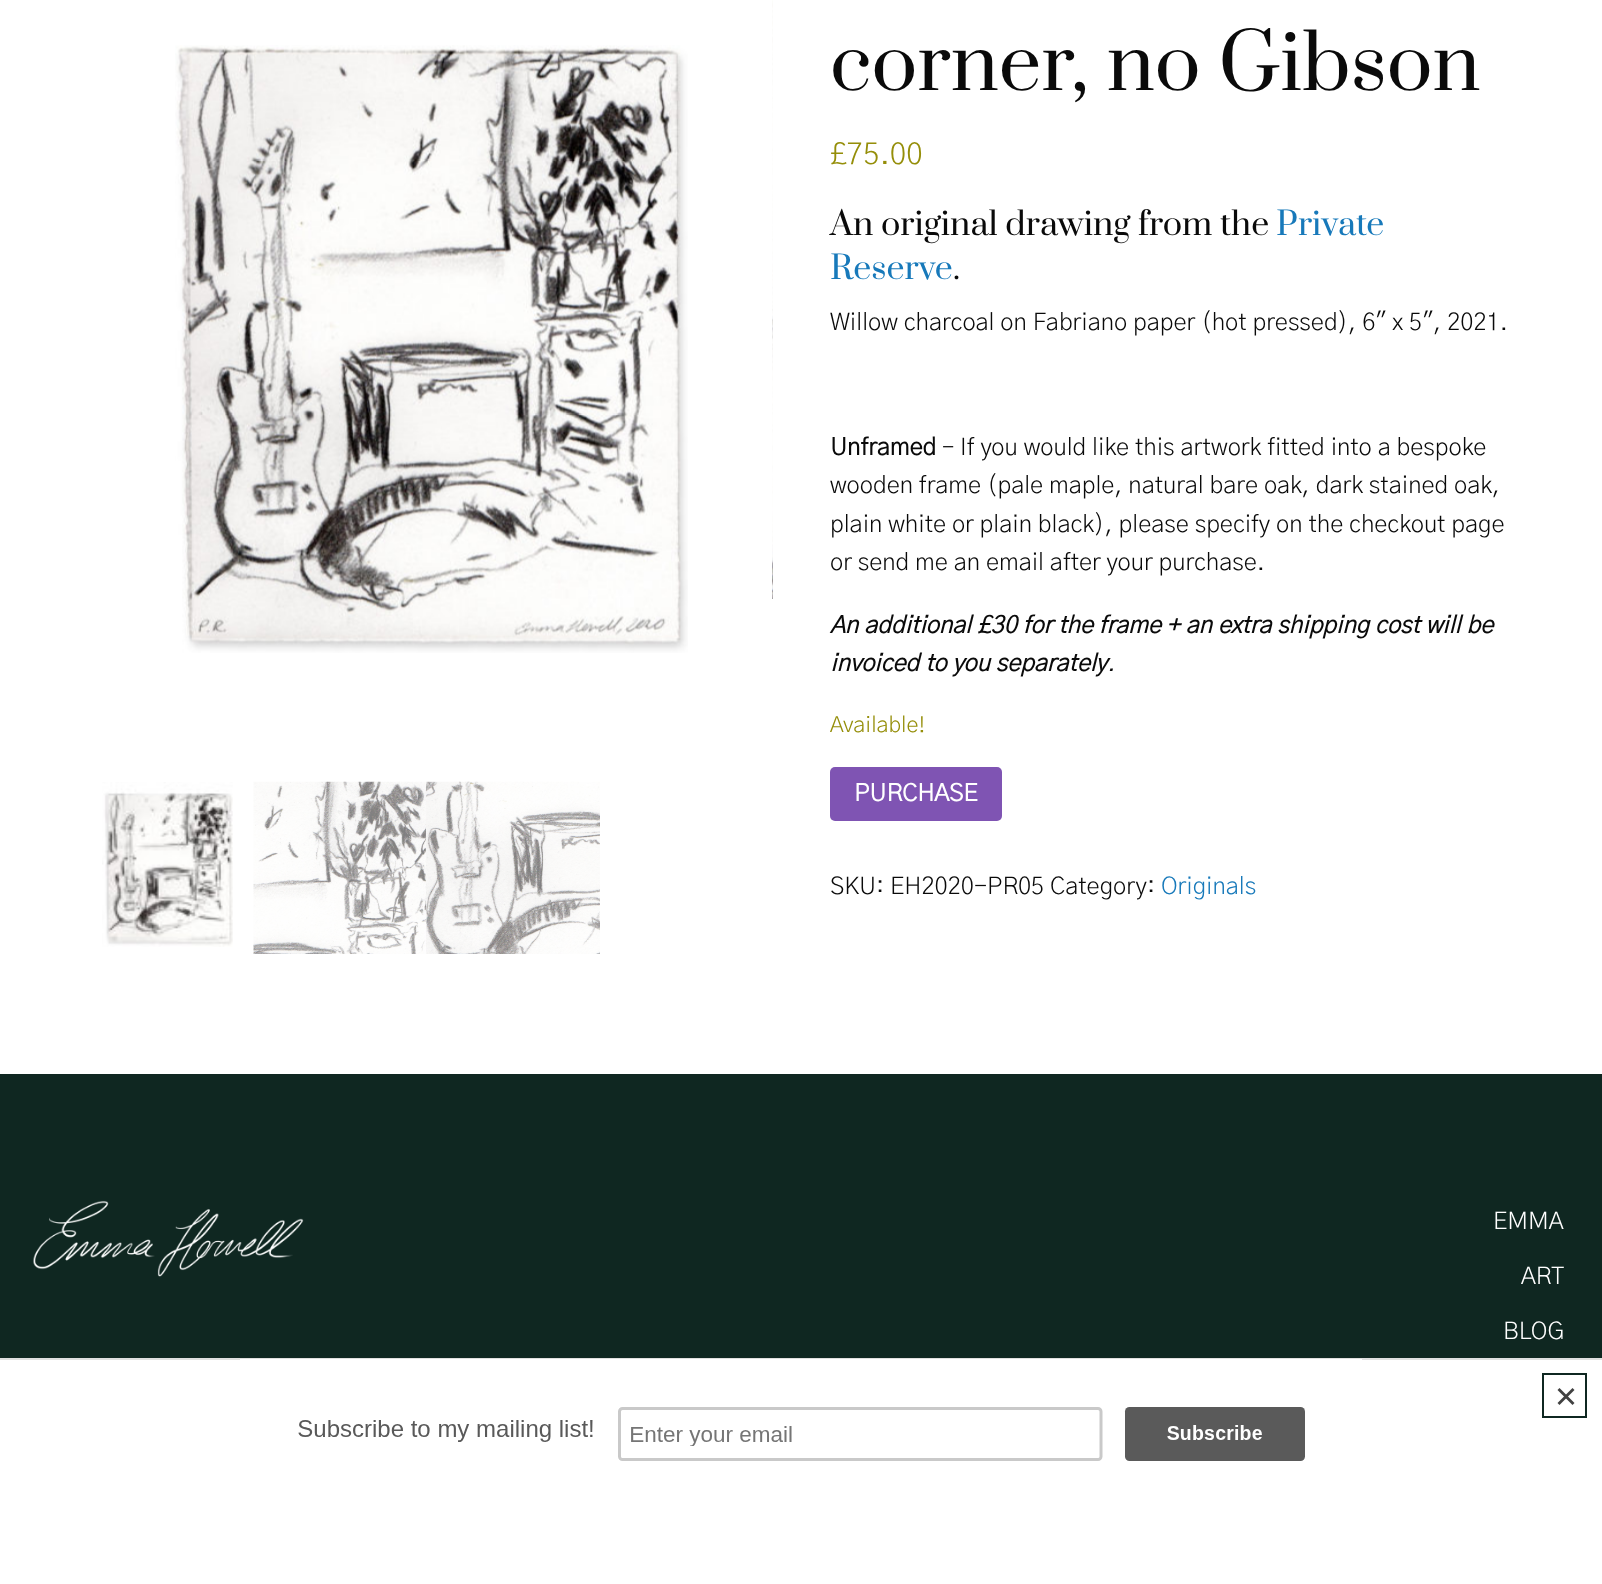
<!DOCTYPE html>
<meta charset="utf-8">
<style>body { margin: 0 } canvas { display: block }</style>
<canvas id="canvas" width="1602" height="1584"></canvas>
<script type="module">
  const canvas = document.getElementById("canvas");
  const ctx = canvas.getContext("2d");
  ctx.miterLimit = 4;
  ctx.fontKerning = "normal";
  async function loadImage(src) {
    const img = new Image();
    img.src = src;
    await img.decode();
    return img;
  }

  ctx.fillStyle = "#ffffff";
  ctx.fillRect(0, 0, 1602, 1584);
  ctx.drawImage(await loadImage("img1.png"), 175, 45, 513, 608);
  ctx.drawImage(await loadImage("img2.png"), 772, 0, 1, 599);
  ctx.drawImage(await loadImage("img3.png"), 102, 782, 131, 165);
  ctx.drawImage(await loadImage("img4.png"), 253, 781, 173, 173);
  ctx.drawImage(await loadImage("img5.png"), 426, 781, 174, 173);
  ctx.font = "75.75px Prata";
  ctx.fillStyle = "#0a0a0a";
  ctx.fillText("corner, no Gibson", 830, 90);
  ctx.font = "300 30px 'Gothic A1'";
  ctx.fillStyle = "#958e09";
  ctx.fillText("£75.00", 830, 164);
  ctx.font = "32px Prata";
  ctx.fillStyle = "#0a0a0a";
  ctx.fillText("An original drawing from the", 830, 235);
  ctx.fillStyle = "#1779ba";
  ctx.fillText("Private", 1276, 235);
  ctx.fillText("Reserve", 830, 279);
  ctx.fillStyle = "#0a0a0a";
  ctx.fillText(".", 953, 279);
  ctx.font = "300 24px 'Gothic A1'";
  ctx.fillText("Willow charcoal on Fabriano paper (hot pressed), 6″ x 5″, 2021.", 830, 330);
  ctx.font = "bold 24px 'Gothic A1'";
  ctx.fillText("Unframed", 830, 455);
  ctx.font = "300 24px 'Gothic A1'";
  ctx.fillText("– If you would like this artwork fitted into a bespoke", 942, 455);
  ctx.fillText("wooden frame (pale maple, natural bare oak, dark stained oak,", 830, 493);
  ctx.fillText("plain white or plain black), please specify on the checkout page", 830, 532);
  ctx.fillText("or send me an email after your purchase.", 830, 570);
  ctx.font = "italic bold 24px 'Gothic A1'";
  ctx.fillText("An additional £30 for the frame + an extra shipping cost will be", 830, 633);
  ctx.fillText("invoiced to you separately", 830, 671);
  ctx.font = "italic 300 24px 'Gothic A1'";
  ctx.fillText(".", 1107, 671);
  ctx.font = "300 22px 'Gothic A1'";
  ctx.fillStyle = "#958e09";
  ctx.fillText("Available!", 830, 732);
  ctx.fillStyle = "#7f54b3";
  ctx.beginPath();
  ctx.roundRect(830, 767, 172, 54, 5);
  ctx.fill();
  ctx.font = "bold 24px 'Gothic A1'";
  ctx.fillStyle = "#ffffff";
  ctx.fillText("PURCHASE", 854, 801);
  ctx.font = "300 24px 'Gothic A1'";
  ctx.fillStyle = "#0a0a0a";
  ctx.fillText("SKU: EH2020-PR05 Category:", 830, 894);
  ctx.fillStyle = "#1779ba";
  ctx.fillText("Originals", 1161, 894);
  ctx.fillStyle = "#0f2721";
  ctx.fillRect(0, 1074, 1602, 284);
  ctx.drawImage(await loadImage("img6.png"), 33, 1200, 271, 77);
  ctx.fillStyle = "#ffffff";
  ctx.fillText("EMMA", 1493, 1229);
  ctx.fillText("ART", 1521, 1284);
  ctx.fillText("BLOG", 1503, 1339);
  ctx.fillStyle = "#e0e0e0";
  ctx.fillRect(0, 1358, 1602, 2);
  ctx.drawImage(await loadImage("img7.png"), 240, 1359, 1122, 102);
  ctx.strokeStyle = "#0f2721";
  ctx.lineWidth = 2;
  ctx.strokeRect(1543, 1374, 43, 43);
  ctx.fillStyle = "#414141";
  ctx.beginPath();
  ctx.moveTo(1572.5, 1388);
  ctx.lineTo(1574.5, 1390);
  ctx.lineTo(1559.5, 1405);
  ctx.lineTo(1557.5, 1403);
  ctx.closePath();
  ctx.fill();
  ctx.beginPath();
  ctx.moveTo(1557.5, 1390);
  ctx.lineTo(1559.5, 1388);
  ctx.lineTo(1574.5, 1403);
  ctx.lineTo(1572.5, 1405);
  ctx.closePath();
  ctx.fill();
</script>
